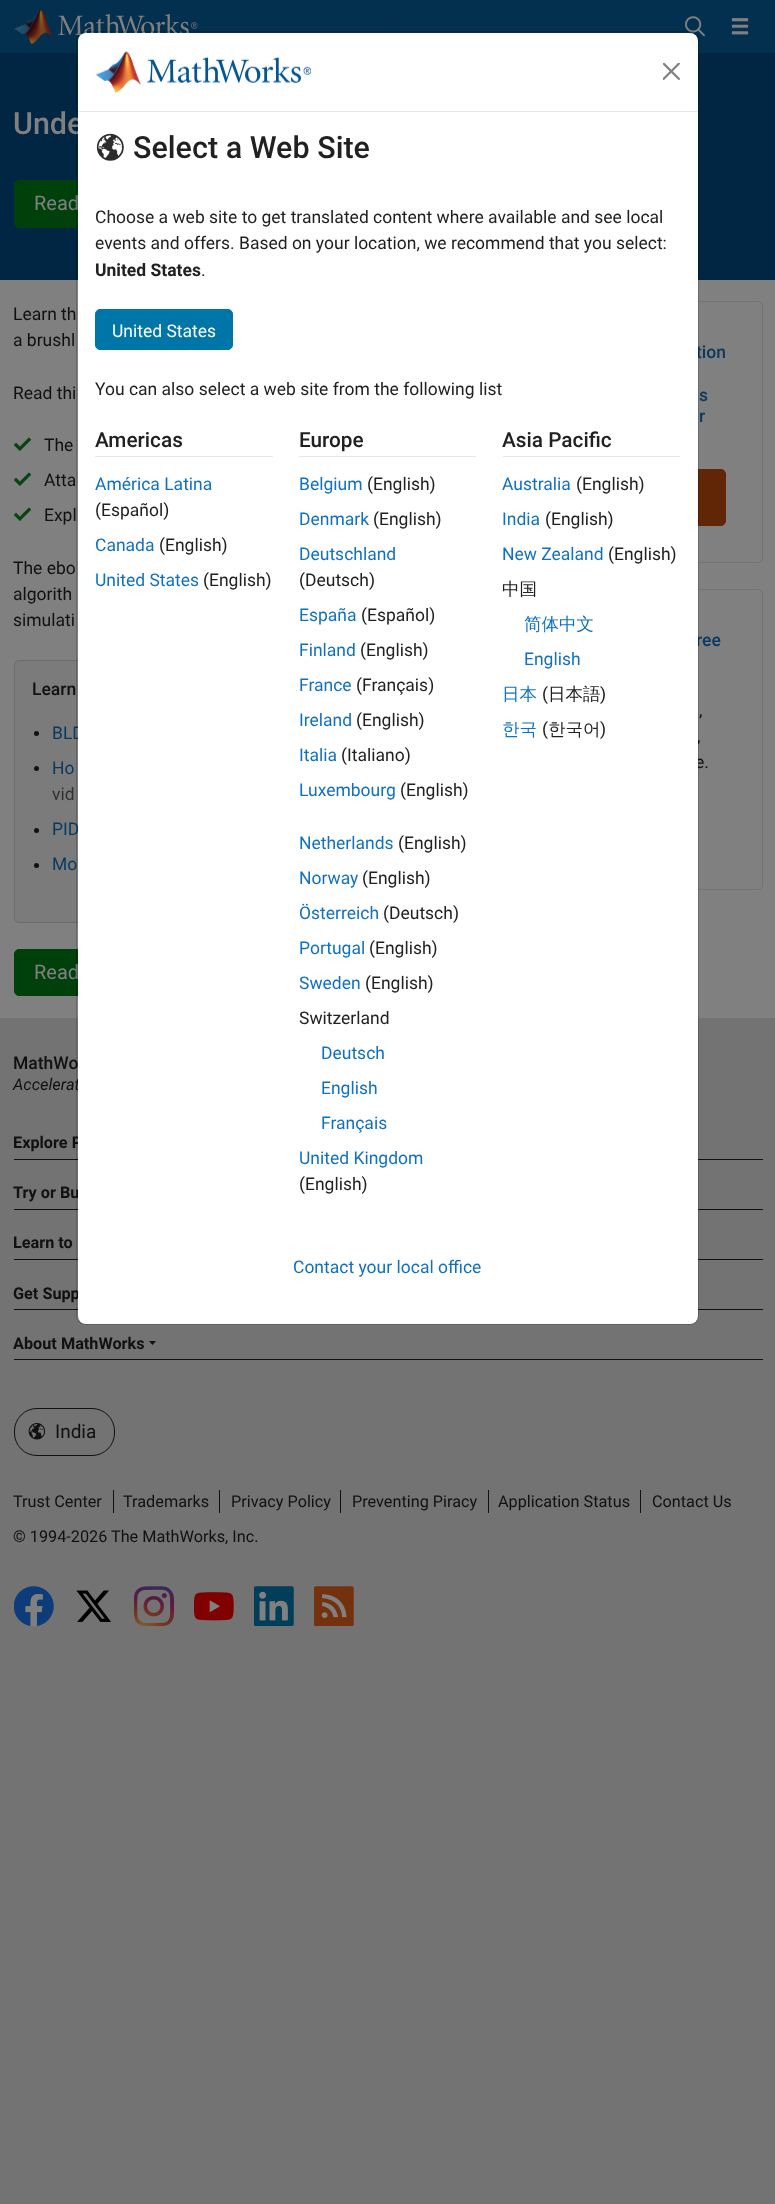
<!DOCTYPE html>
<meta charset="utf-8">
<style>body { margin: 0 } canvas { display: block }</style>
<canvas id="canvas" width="775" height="2204"></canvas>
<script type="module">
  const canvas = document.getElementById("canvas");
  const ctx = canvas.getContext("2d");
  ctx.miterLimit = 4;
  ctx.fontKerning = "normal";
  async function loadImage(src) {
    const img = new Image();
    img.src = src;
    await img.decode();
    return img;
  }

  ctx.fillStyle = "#737373";
  ctx.fillRect(0, 0, 775, 2204);
  ctx.fillStyle = "#04304f";
  ctx.fillRect(0, 0, 775, 53);
  ctx.drawImage(await loadImage("img1.png"), 14, 8, 184, 36);
  ctx.drawImage(await loadImage("img2.png"), 685, 16, 20, 21);
  ctx.drawImage(await loadImage("img3.png"), 731, 18, 18, 17);
  ctx.fillStyle = "#808080";
  ctx.fillRect(0, 280, 775, 738);
  ctx.fillStyle = "#002644";
  ctx.fillRect(0, 53, 775, 227);
  ctx.font = "500 30.5px Roboto";
  ctx.fillStyle = "#808080";
  ctx.fillText("Unde", 13, 134);
  ctx.fillStyle = "#00400a";
  ctx.beginPath();
  ctx.roundRect(14.5, 180.5, 144, 47, 4.5);
  ctx.fill();
  ctx.strokeStyle = "#00400a";
  ctx.stroke();
  ctx.font = "20px Roboto";
  ctx.fillStyle = "#808080";
  ctx.fillText("Read", 34, 210);
  ctx.fillStyle = "#7b7b7b";
  ctx.beginPath();
  ctx.roundRect(14.5, 660.5, 554, 262, 4.5);
  ctx.fill();
  ctx.strokeStyle = "#6d6d6d";
  ctx.stroke();
  ctx.font = "17.5px Roboto";
  ctx.fillStyle = "#09395f";
  ctx.fillText("BLD", 52, 739);
  ctx.fillText("PID", 52, 835);
  ctx.fillStyle = "#00400a";
  ctx.beginPath();
  ctx.roundRect(14.5, 949.5, 144, 46, 4.5);
  ctx.fill();
  ctx.strokeStyle = "#00400a";
  ctx.stroke();
  ctx.beginPath();
  ctx.roundRect(595.5, 301.5, 167, 261, 4.5);
  ctx.strokeStyle = "#737373";
  ctx.stroke();
  ctx.font = "500 17.5px Roboto";
  ctx.fillStyle = "#09395f";
  ctx.fillText("tion", 696, 358);
  ctx.fillStyle = "#602606";
  ctx.beginPath();
  ctx.roundRect(631.5, 469.5, 94, 56, 4.5);
  ctx.fill();
  ctx.strokeStyle = "#602606";
  ctx.stroke();
  ctx.beginPath();
  ctx.roundRect(595.5, 589.5, 167, 300, 4.5);
  ctx.strokeStyle = "#737373";
  ctx.stroke();
  ctx.fillStyle = "#09395f";
  ctx.fillText("ree", 696, 646);
  ctx.font = "17.5px Roboto";
  ctx.fillStyle = "#111111";
  ctx.fillText(",", 697, 742);
  ctx.fillText("e.", 695, 768);
  ctx.font = "italic 16.25px Roboto";
  ctx.fillText("Accelerat", 13, 1090);
  ctx.fillRect(14, 1159, 749, 1);
  ctx.font = "bold 16.25px Roboto";
  ctx.fillText("Explore P", 13, 1148);
  ctx.fillRect(14, 1209, 749, 1);
  ctx.fillText("Try or Bu", 13, 1198);
  ctx.fillRect(14, 1259, 749, 1);
  ctx.fillRect(14, 1309, 749, 1);
  ctx.fillText("Get Supp", 13, 1299);
  ctx.fillStyle = "#ffffff";
  ctx.beginPath();
  ctx.roundRect(78, 33, 620, 1291, 8);
  ctx.fill();
  ctx.font = "17.5px Roboto";
  ctx.fillStyle = "#09395f";
  ctx.fillText("Mo", 52, 870);
  ctx.font = "20px Roboto";
  ctx.fillStyle = "#808080";
  ctx.fillText("Read", 34, 979);
  ctx.font = "17.5px Roboto";
  ctx.fillStyle = "#111111";
  ctx.fillText(",", 699, 716);
  ctx.font = "500 17.5px Roboto";
  ctx.fillText("MathWo", 13, 1069);
  ctx.beginPath();
  ctx.roundRect(76.5, 31.5, 622, 1293, 8.5);
  ctx.strokeStyle = "rgba(0, 0, 0, 0.18)";
  ctx.stroke();
  ctx.fillStyle = "#e6e6e6";
  ctx.fillRect(78, 111, 620, 1);
  ctx.drawImage(await loadImage("img4.png"), 96, 51, 215, 42);
  ctx.drawImage(await loadImage("img5.png"), 663, 63, 17, 17);
  ctx.drawImage(await loadImage("img6.png"), 96, 133, 28, 28);
  ctx.font = "500 30.5px Roboto";
  ctx.fillStyle = "#212121";
  ctx.fillText("Select a Web Site", 133, 158);
  ctx.font = "17.5px Roboto";
  ctx.fillText("Choose a web site to get translated content where available and see local", 95, 223);
  ctx.fillText("events and offers. Based on your location, we recommend that you select:", 95, 249);
  ctx.font = "bold 17.5px Roboto";
  ctx.fillText("United States", 95, 276);
  ctx.font = "17.5px Roboto";
  ctx.fillText(".", 201, 276);
  ctx.fillStyle = "#0076a8";
  ctx.beginPath();
  ctx.roundRect(95.5, 309.5, 137, 40, 4.5);
  ctx.fill();
  ctx.strokeStyle = "#0076a8";
  ctx.stroke();
  ctx.fillStyle = "#ffffff";
  ctx.fillText("United States", 112, 337);
  ctx.fillStyle = "#212121";
  ctx.fillText("You can also select a web site from the following list", 95, 395);
  ctx.fillStyle = "#e6e6e6";
  ctx.fillRect(95, 456, 178, 1);
  ctx.font = "500 20.75px Roboto";
  ctx.fillStyle = "#212121";
  ctx.fillText("Americas", 95, 447);
  ctx.font = "17.5px Roboto";
  ctx.fillStyle = "#1171be";
  ctx.fillText("América Latina", 95, 490);
  ctx.fillStyle = "#212121";
  ctx.fillText("(Español)", 95, 516);
  ctx.fillStyle = "#1171be";
  ctx.fillText("Canada", 95, 551);
  ctx.fillStyle = "#212121";
  ctx.fillText("(English)", 159, 551);
  ctx.fillStyle = "#1171be";
  ctx.fillText("United States", 95, 586);
  ctx.fillStyle = "#212121";
  ctx.fillText("(English)", 203, 586);
  ctx.fillStyle = "#e6e6e6";
  ctx.fillRect(299, 456, 177, 1);
  ctx.font = "500 20.75px Roboto";
  ctx.fillStyle = "#212121";
  ctx.fillText("Europe", 299, 447);
  ctx.font = "17.5px Roboto";
  ctx.fillStyle = "#1171be";
  ctx.fillText("Belgium", 299, 490);
  ctx.fillStyle = "#212121";
  ctx.fillText("(English)", 367, 490);
  ctx.fillStyle = "#1171be";
  ctx.fillText("Denmark", 299, 525);
  ctx.fillStyle = "#212121";
  ctx.fillText("(English)", 373, 525);
  ctx.fillStyle = "#1171be";
  ctx.fillText("Deutschland", 299, 560);
  ctx.fillStyle = "#212121";
  ctx.fillText("(Deutsch)", 299, 586);
  ctx.fillStyle = "#1171be";
  ctx.fillText("España", 299, 621);
  ctx.fillStyle = "#212121";
  ctx.fillText("(Español)", 361, 621);
  ctx.fillStyle = "#1171be";
  ctx.fillText("Finland", 299, 656);
  ctx.fillStyle = "#212121";
  ctx.fillText("(English)", 360, 656);
  ctx.fillStyle = "#1171be";
  ctx.fillText("France", 299, 691);
  ctx.fillStyle = "#212121";
  ctx.fillText("(Français)", 356, 691);
  ctx.fillStyle = "#1171be";
  ctx.fillText("Ireland", 299, 726);
  ctx.fillStyle = "#212121";
  ctx.fillText("(English)", 356, 726);
  ctx.fillStyle = "#1171be";
  ctx.fillText("Italia", 299, 761);
  ctx.fillStyle = "#212121";
  ctx.fillText("(Italiano)", 341, 761);
  ctx.fillStyle = "#1171be";
  ctx.fillText("Luxembourg", 299, 796);
  ctx.fillStyle = "#212121";
  ctx.fillText("(English)", 400, 796);
  ctx.fillStyle = "#1171be";
  ctx.fillText("Netherlands", 299, 849);
  ctx.fillStyle = "#212121";
  ctx.fillText("(English)", 398, 849);
  ctx.fillStyle = "#1171be";
  ctx.fillText("Norway", 299, 884);
  ctx.fillStyle = "#212121";
  ctx.fillText("(English)", 362, 884);
  ctx.fillStyle = "#1171be";
  ctx.fillText("Österreich", 299, 919);
  ctx.fillStyle = "#212121";
  ctx.fillText("(Deutsch)", 383, 919);
  ctx.fillStyle = "#1171be";
  ctx.fillText("Portugal", 299, 954);
  ctx.fillStyle = "#212121";
  ctx.fillText("(English)", 369, 954);
  ctx.fillStyle = "#1171be";
  ctx.fillText("Sweden", 299, 989);
  ctx.fillStyle = "#212121";
  ctx.fillText("(English)", 365, 989);
  ctx.fillText("Switzerland", 299, 1024);
  ctx.fillStyle = "#1171be";
  ctx.fillText("Deutsch", 321, 1059);
  ctx.fillText("English", 321, 1094);
  ctx.fillText("Français", 321, 1129);
  ctx.fillText("United Kingdom", 299, 1164);
  ctx.fillStyle = "#212121";
  ctx.fillText("(English)", 299, 1190);
  ctx.fillStyle = "#e6e6e6";
  ctx.fillRect(503, 456, 177, 1);
  ctx.font = "500 20.75px Roboto";
  ctx.fillStyle = "#212121";
  ctx.fillText("Asia Pacific", 502, 447);
  ctx.font = "17.5px Roboto";
  ctx.fillStyle = "#1171be";
  ctx.fillText("Australia", 502, 490);
  ctx.fillStyle = "#212121";
  ctx.fillText("(English)", 576, 490);
  ctx.fillStyle = "#1171be";
  ctx.fillText("India", 502, 525);
  ctx.fillStyle = "#212121";
  ctx.fillText("(English)", 545, 525);
  ctx.fillStyle = "#1171be";
  ctx.fillText("New Zealand", 502, 560);
  ctx.fillStyle = "#212121";
  ctx.fillText("(English)", 608, 560);
  ctx.font = "500 17.5px WenQuanYi Zen Hei";
  ctx.fillText("中国", 502, 595);
  ctx.fillStyle = "#1171be";
  ctx.fillText("简体中文", 524, 630);
  ctx.font = "17.5px Roboto";
  ctx.fillText("English", 524, 665);
  ctx.font = "500 17.5px WenQuanYi Zen Hei";
  ctx.fillText("日本", 502, 700);
  ctx.font = "17.5px Roboto";
  ctx.fillStyle = "#212121";
  ctx.fillText("(", 542, 700);
  ctx.font = "500 17.5px WenQuanYi Zen Hei";
  ctx.fillText("日本語", 548, 700);
  ctx.font = "17.5px Roboto";
  ctx.fillText(")", 600, 700);
  ctx.font = "500 17.5px WenQuanYi Zen Hei";
  ctx.fillStyle = "#1171be";
  ctx.fillText("한국", 502, 735);
  ctx.font = "17.5px Roboto";
  ctx.fillStyle = "#212121";
  ctx.fillText("(", 542, 735);
  ctx.font = "500 17.5px WenQuanYi Zen Hei";
  ctx.fillText("한국어", 548, 735);
  ctx.font = "17.5px Roboto";
  ctx.fillText(")", 600, 735);
  ctx.fillStyle = "#1171be";
  ctx.fillText("Contact your local office", 293, 1273);
  ctx.fillStyle = "#111111";
  ctx.fillText("Learn th", 13, 320);
  ctx.fillText("a brushl", 13, 346);
  ctx.fillText("Read thi", 13, 399);
  ctx.drawImage(await loadImage("img7.png"), 13, 437, 19, 14);
  ctx.fillText("The", 44, 451);
  ctx.drawImage(await loadImage("img7.png"), 13, 472, 19, 14);
  ctx.fillText("Atta", 44, 486);
  ctx.drawImage(await loadImage("img7.png"), 13, 507, 19, 14);
  ctx.fillText("Expl", 44, 521);
  ctx.fillText("The ebo", 13, 574);
  ctx.fillText("algorith", 13, 600);
  ctx.fillText("simulati", 13, 626);
  ctx.font = "500 17.5px Roboto";
  ctx.fillText("Learn", 32, 695);
  ctx.beginPath();
  ctx.arc(36.5, 733.5, 2.5, 0, Math.PI * 2);
  ctx.fill();
  ctx.beginPath();
  ctx.arc(36.5, 768.5, 2.5, 0, Math.PI * 2);
  ctx.fill();
  ctx.font = "17.5px Roboto";
  ctx.fillStyle = "#09395f";
  ctx.fillText("Ho", 52, 774);
  ctx.fillStyle = "#313131";
  ctx.fillText("vid", 52, 800);
  ctx.fillStyle = "#111111";
  ctx.beginPath();
  ctx.arc(36.5, 830.5, 2.5, 0, Math.PI * 2);
  ctx.fill();
  ctx.beginPath();
  ctx.arc(36.5, 865.5, 2.5, 0, Math.PI * 2);
  ctx.fill();
  ctx.font = "500 17.5px Roboto";
  ctx.fillStyle = "#09395f";
  ctx.fillText("s", 699, 401);
  ctx.fillText("r", 699, 422);
  ctx.font = "bold 16.25px Roboto";
  ctx.fillStyle = "#111111";
  ctx.fillText("Learn to", 13, 1248);
  ctx.fillRect(14, 1359, 749, 1);
  ctx.fillText("About MathWorks", 13, 1349);
  ctx.beginPath();
  ctx.moveTo(149, 1341);
  ctx.lineTo(156, 1341);
  ctx.lineTo(152.5, 1345);
  ctx.closePath();
  ctx.fill();
  ctx.beginPath();
  ctx.roundRect(14.5, 1408.5, 100, 47, 22.5);
  ctx.strokeStyle = "#111111";
  ctx.stroke();
  ctx.drawImage(await loadImage("img8.png"), 28, 1423, 18, 17);
  ctx.font = "19px Roboto";
  ctx.fillText("India", 55, 1438);
  ctx.fillRect(113, 1490, 1, 23);
  ctx.font = "16.25px Roboto";
  ctx.fillText("Trust Center", 13, 1507);
  ctx.fillRect(219, 1490, 1, 23);
  ctx.fillText("Trademarks", 123, 1507);
  ctx.fillRect(340, 1490, 1, 23);
  ctx.fillText("Privacy Policy", 231, 1507);
  ctx.fillRect(488, 1490, 1, 23);
  ctx.fillText("Preventing Piracy", 352, 1507);
  ctx.fillRect(640, 1490, 1, 23);
  ctx.fillText("Application Status", 498, 1507);
  ctx.fillText("Contact Us", 652, 1507);
  ctx.fillText("© 1994-2026 The MathWorks, Inc.", 13, 1542);
  ctx.drawImage(await loadImage("img9.png"), 14, 1586, 40, 40);
  ctx.drawImage(await loadImage("img10.png"), 76, 1590, 35, 32);
  ctx.drawImage(await loadImage("img11.png"), 134, 1586, 40, 40);
  ctx.drawImage(await loadImage("img12.png"), 194, 1592, 40, 29);
  ctx.drawImage(await loadImage("img13.png"), 254, 1586, 40, 40);
  ctx.drawImage(await loadImage("img14.png"), 314, 1586, 40, 40);
</script>
